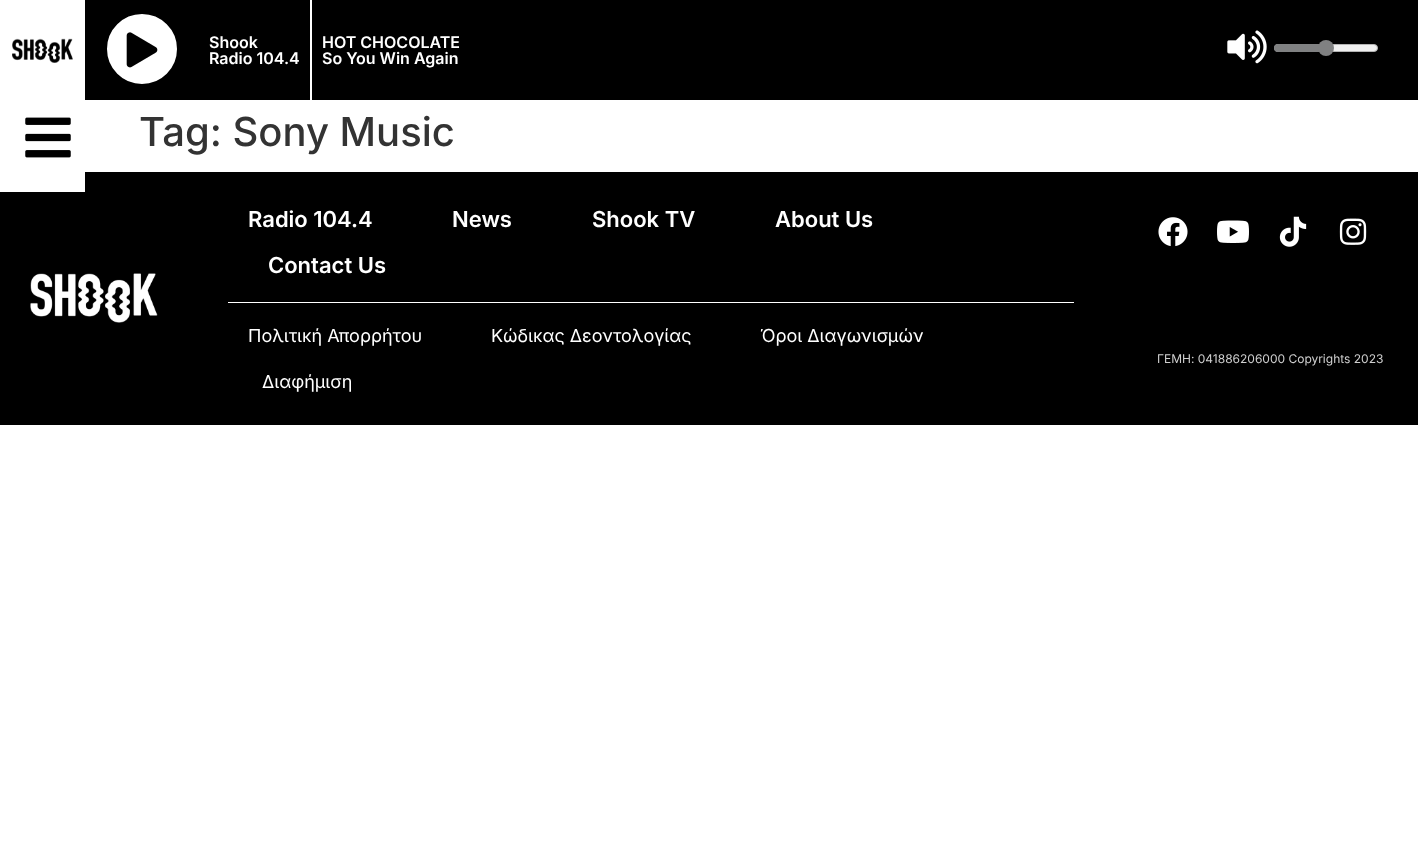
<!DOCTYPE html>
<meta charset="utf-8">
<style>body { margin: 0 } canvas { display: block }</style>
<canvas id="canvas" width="1418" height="867"></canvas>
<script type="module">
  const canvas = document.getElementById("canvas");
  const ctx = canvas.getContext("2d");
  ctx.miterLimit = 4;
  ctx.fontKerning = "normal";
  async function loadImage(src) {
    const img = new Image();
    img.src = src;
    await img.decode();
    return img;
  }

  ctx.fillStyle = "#ffffff";
  ctx.fillRect(0, 0, 1418, 867);
  ctx.fillStyle = "#000000";
  ctx.fillRect(85, 0, 1333, 100);
  ctx.drawImage(await loadImage("img1.png"), 12, 38, 61, 25);
  ctx.fillRect(0, 172, 1418, 253);
  ctx.fillStyle = "#ffffff";
  ctx.fillRect(0, 172, 85, 20);
  ctx.drawImage(await loadImage("img2.png"), 25, 117, 46, 41);
  ctx.beginPath();
  ctx.arc(142, 49, 36.5, 0, Math.PI * 2);
  ctx.fill();
  ctx.strokeStyle = "#000000";
  ctx.lineWidth = 3;
  ctx.stroke();
  ctx.drawImage(await loadImage("img3.png"), 126, 32, 32, 36);
  ctx.fillRect(310, 0, 2, 100);
  ctx.font = "600 16px Inter";
  ctx.fillText("Shook", 209, 48);
  ctx.fillText("Radio 104.4", 209, 64);
  ctx.fillText("HOT CHOCOLATE", 322, 48);
  ctx.fillText("So You Win Again", 322, 64);
  ctx.drawImage(await loadImage("img4.png"), 1227, 30, 40, 34);
  ctx.fillStyle = "#efefef";
  ctx.beginPath();
  ctx.roundRect(1274.5, 44.5, 103, 7, 3.5);
  ctx.fill();
  ctx.strokeStyle = "#b2b2b2";
  ctx.lineWidth = 1;
  ctx.stroke();
  ctx.fillStyle = "#808182";
  ctx.beginPath();
  ctx.roundRect(1274, 44, 52, 8, [4, 0, 0, 4]);
  ctx.fill();
  ctx.beginPath();
  ctx.arc(1326, 48, 8, 0, Math.PI * 2);
  ctx.fill();
  ctx.font = "500 40px Inter";
  ctx.fillStyle = "#333333";
  ctx.fillText("Tag: Sony Music", 139, 146);
  ctx.drawImage(await loadImage("img5.png"), 30, 273, 128, 50);
  ctx.font = "600 22px Inter";
  ctx.fillStyle = "#ffffff";
  ctx.fillText("Radio 104.4", 248, 227);
  ctx.fillText("News", 452, 227);
  ctx.fillText("Shook TV", 592, 227);
  ctx.fillText("About Us", 775, 227);
  ctx.fillText("Contact Us", 268, 273);
  ctx.drawImage(await loadImage("img6.png"), 1158, 217, 30, 30);
  ctx.drawImage(await loadImage("img7.png"), 1217, 220, 32, 23);
  ctx.drawImage(await loadImage("img8.png"), 1279, 216, 28, 31);
  ctx.drawImage(await loadImage("img9.png"), 1339, 218, 28, 27);
  ctx.fillRect(228, 302, 846, 1);
  ctx.font = "18px Inter";
  ctx.fillText("Πολιτική Απορρήτου", 248, 342);
  ctx.fillText("Κώδικας Δεοντολογίας", 491, 342);
  ctx.fillText("Όροι Διαγωνισμών", 760, 342);
  ctx.fillText("Διαφήμιση", 262, 388);
  ctx.font = "12px Inter";
  ctx.fillStyle = "#cfcfcf";
  ctx.fillText("ΓΕΜΗ: 041886206000 Copyrights 2023", 1157, 363);
</script>
